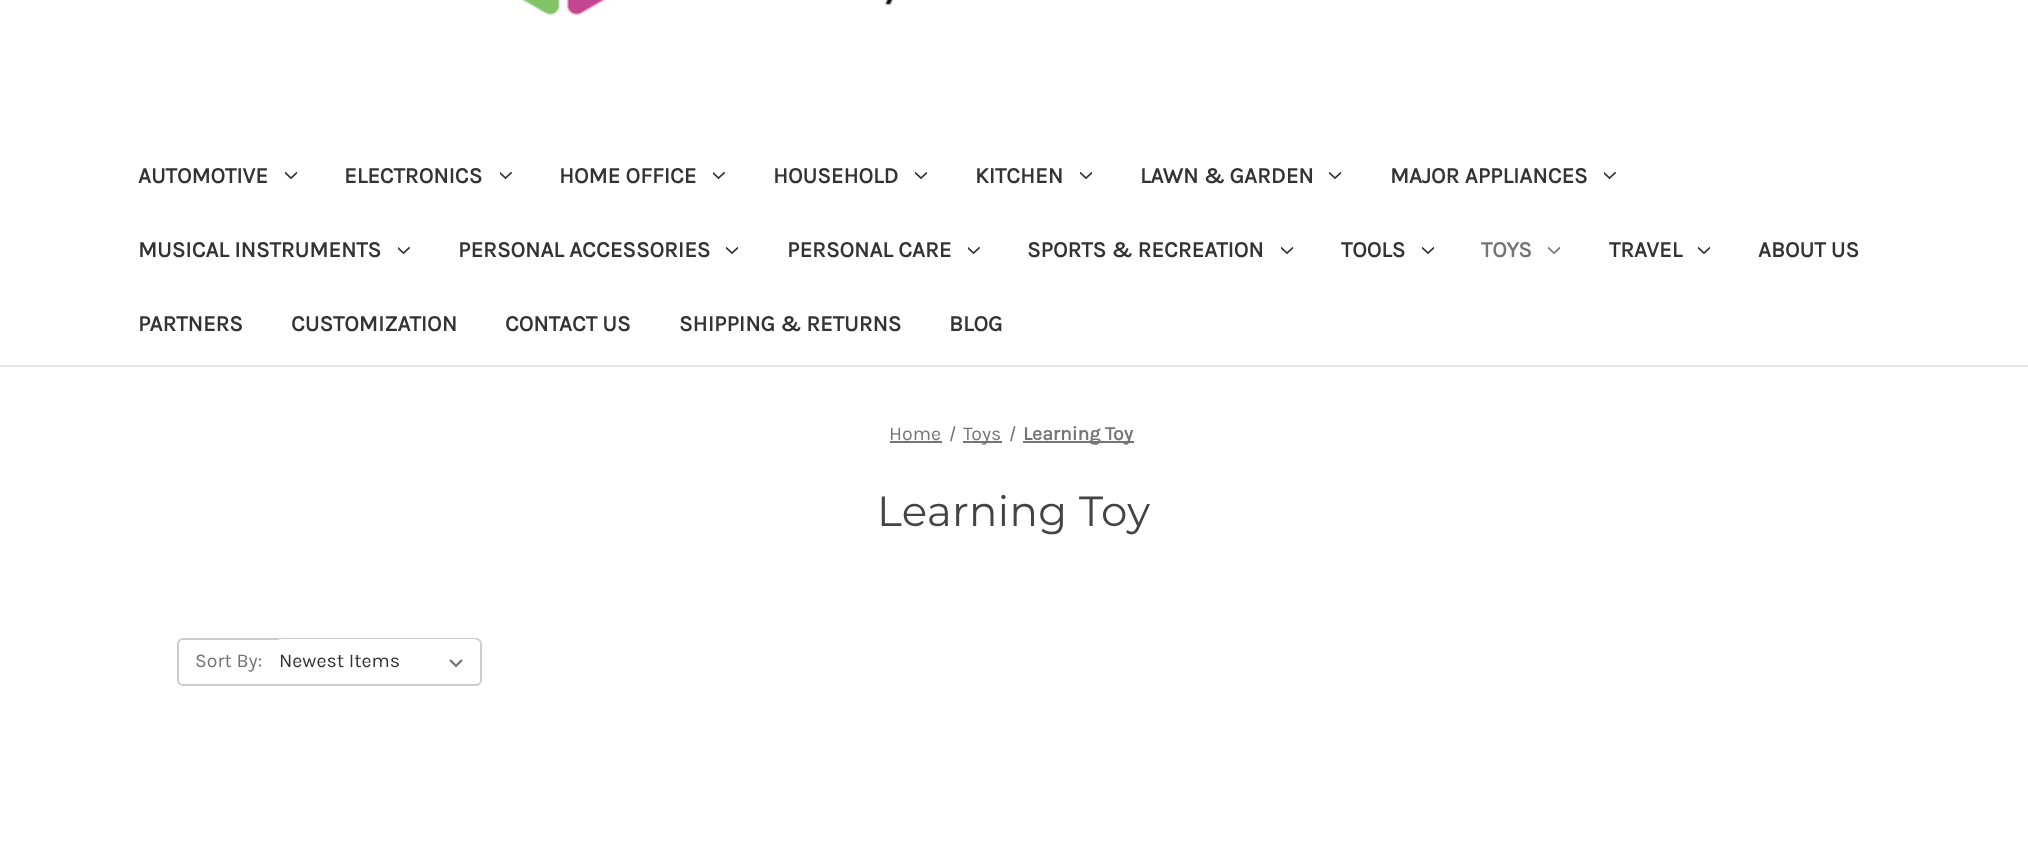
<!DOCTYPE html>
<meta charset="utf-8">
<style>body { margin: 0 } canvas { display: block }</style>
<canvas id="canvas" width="2028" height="853"></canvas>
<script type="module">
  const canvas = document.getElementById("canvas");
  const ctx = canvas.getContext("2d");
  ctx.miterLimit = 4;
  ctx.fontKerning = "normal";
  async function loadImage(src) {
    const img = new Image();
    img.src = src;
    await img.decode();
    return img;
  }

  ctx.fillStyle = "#ffffff";
  ctx.fillRect(0, 0, 2028, 853);
  ctx.fillStyle = "#e5e5e5";
  ctx.fillRect(0, 365, 2028, 2);
  ctx.drawImage(await loadImage("img1.png"), 522, 0, 371, 15);
  ctx.font = "bold 22.5px Karla";
  ctx.fillStyle = "#333333";
  ctx.fillText("AUTOMOTIVE", 138, 183);
  ctx.drawImage(await loadImage("img2.png"), 285, 171, 12, 9);
  ctx.fillText("ELECTRONICS", 344, 183);
  ctx.drawImage(await loadImage("img3.png"), 500, 171, 12, 9);
  ctx.fillText("HOME OFFICE", 559, 183);
  ctx.drawImage(await loadImage("img3.png"), 713, 171, 12, 9);
  ctx.fillText("HOUSEHOLD", 773, 183);
  ctx.drawImage(await loadImage("img2.png"), 915, 171, 12, 9);
  ctx.fillText("KITCHEN", 975, 183);
  ctx.drawImage(await loadImage("img2.png"), 1080, 171, 12, 9);
  ctx.fillText("LAWN & GARDEN", 1140, 183);
  ctx.drawImage(await loadImage("img2.png"), 1329, 171, 12, 9);
  ctx.fillText("MAJOR APPLIANCES", 1390, 183);
  ctx.drawImage(await loadImage("img3.png"), 1604, 171, 12, 9);
  ctx.fillText("MUSICAL INSTRUMENTS", 138, 257);
  ctx.drawImage(await loadImage("img3.png"), 398, 246, 12, 9);
  ctx.fillText("PERSONAL ACCESSORIES", 458, 257);
  ctx.drawImage(await loadImage("img2.png"), 726, 246, 12, 9);
  ctx.fillText("PERSONAL CARE", 787, 257);
  ctx.drawImage(await loadImage("img3.png"), 968, 246, 12, 9);
  ctx.fillText("SPORTS & RECREATION", 1027, 257);
  ctx.drawImage(await loadImage("img2.png"), 1281, 246, 12, 9);
  ctx.fillText("TOOLS", 1341, 257);
  ctx.drawImage(await loadImage("img2.png"), 1422, 246, 12, 9);
  ctx.fillStyle = "#757575";
  ctx.fillText("TOYS", 1481, 257);
  ctx.drawImage(await loadImage("img4.png"), 1548, 246, 12, 8);
  ctx.fillStyle = "#333333";
  ctx.fillText("TRAVEL", 1609, 257);
  ctx.drawImage(await loadImage("img2.png"), 1698, 246, 12, 9);
  ctx.fillText("ABOUT US", 1758, 257);
  ctx.fillText("PARTNERS", 138, 331);
  ctx.fillText("CUSTOMIZATION", 291, 331);
  ctx.fillText("CONTACT US", 505, 331);
  ctx.fillText("SHIPPING & RETURNS", 679, 331);
  ctx.fillText("BLOG", 949, 331);
  ctx.font = "19.5px Karla";
  ctx.fillStyle = "#757575";
  ctx.fillText("Home", 889, 440);
  ctx.fillRect(890, 441, 52, 2);
  ctx.beginPath();
  ctx.moveTo(954, 426);
  ctx.lineTo(955.5, 426.5);
  ctx.lineTo(951.5, 441.5);
  ctx.lineTo(950, 441);
  ctx.closePath();
  ctx.fill();
  ctx.fillRect(963, 441, 39, 2);
  ctx.fillText("Toys", 963, 440);
  ctx.beginPath();
  ctx.moveTo(1014, 426);
  ctx.lineTo(1015.5, 426.5);
  ctx.lineTo(1011.5, 441.5);
  ctx.lineTo(1010, 441);
  ctx.closePath();
  ctx.fill();
  ctx.fillRect(1023, 441, 111, 2);
  ctx.font = "bold 19.5px Karla";
  ctx.fillText("Learning Toy", 1023, 440);
  ctx.letterSpacing = "0.4px";
  ctx.font = "42px Montserrat";
  ctx.fillStyle = "#444444";
  ctx.fillText("Learning Toy", 877, 526);
  ctx.beginPath();
  ctx.roundRect(178, 639, 303, 46, 5);
  ctx.strokeStyle = "#cccccc";
  ctx.lineWidth = 2;
  ctx.stroke();
  ctx.letterSpacing = "0px";
  ctx.font = "19.5px Karla";
  ctx.fillStyle = "#757575";
  ctx.fillText("Sort By:", 195, 667);
  ctx.fillStyle = "#ffffff";
  ctx.beginPath();
  ctx.roundRect(275, 639, 205, 45, 6);
  ctx.fill();
  ctx.drawImage(await loadImage("img5.png"), 449, 659, 14, 9);
  ctx.fillStyle = "#333333";
  ctx.fillText("Newest Items", 279, 667);
</script>
